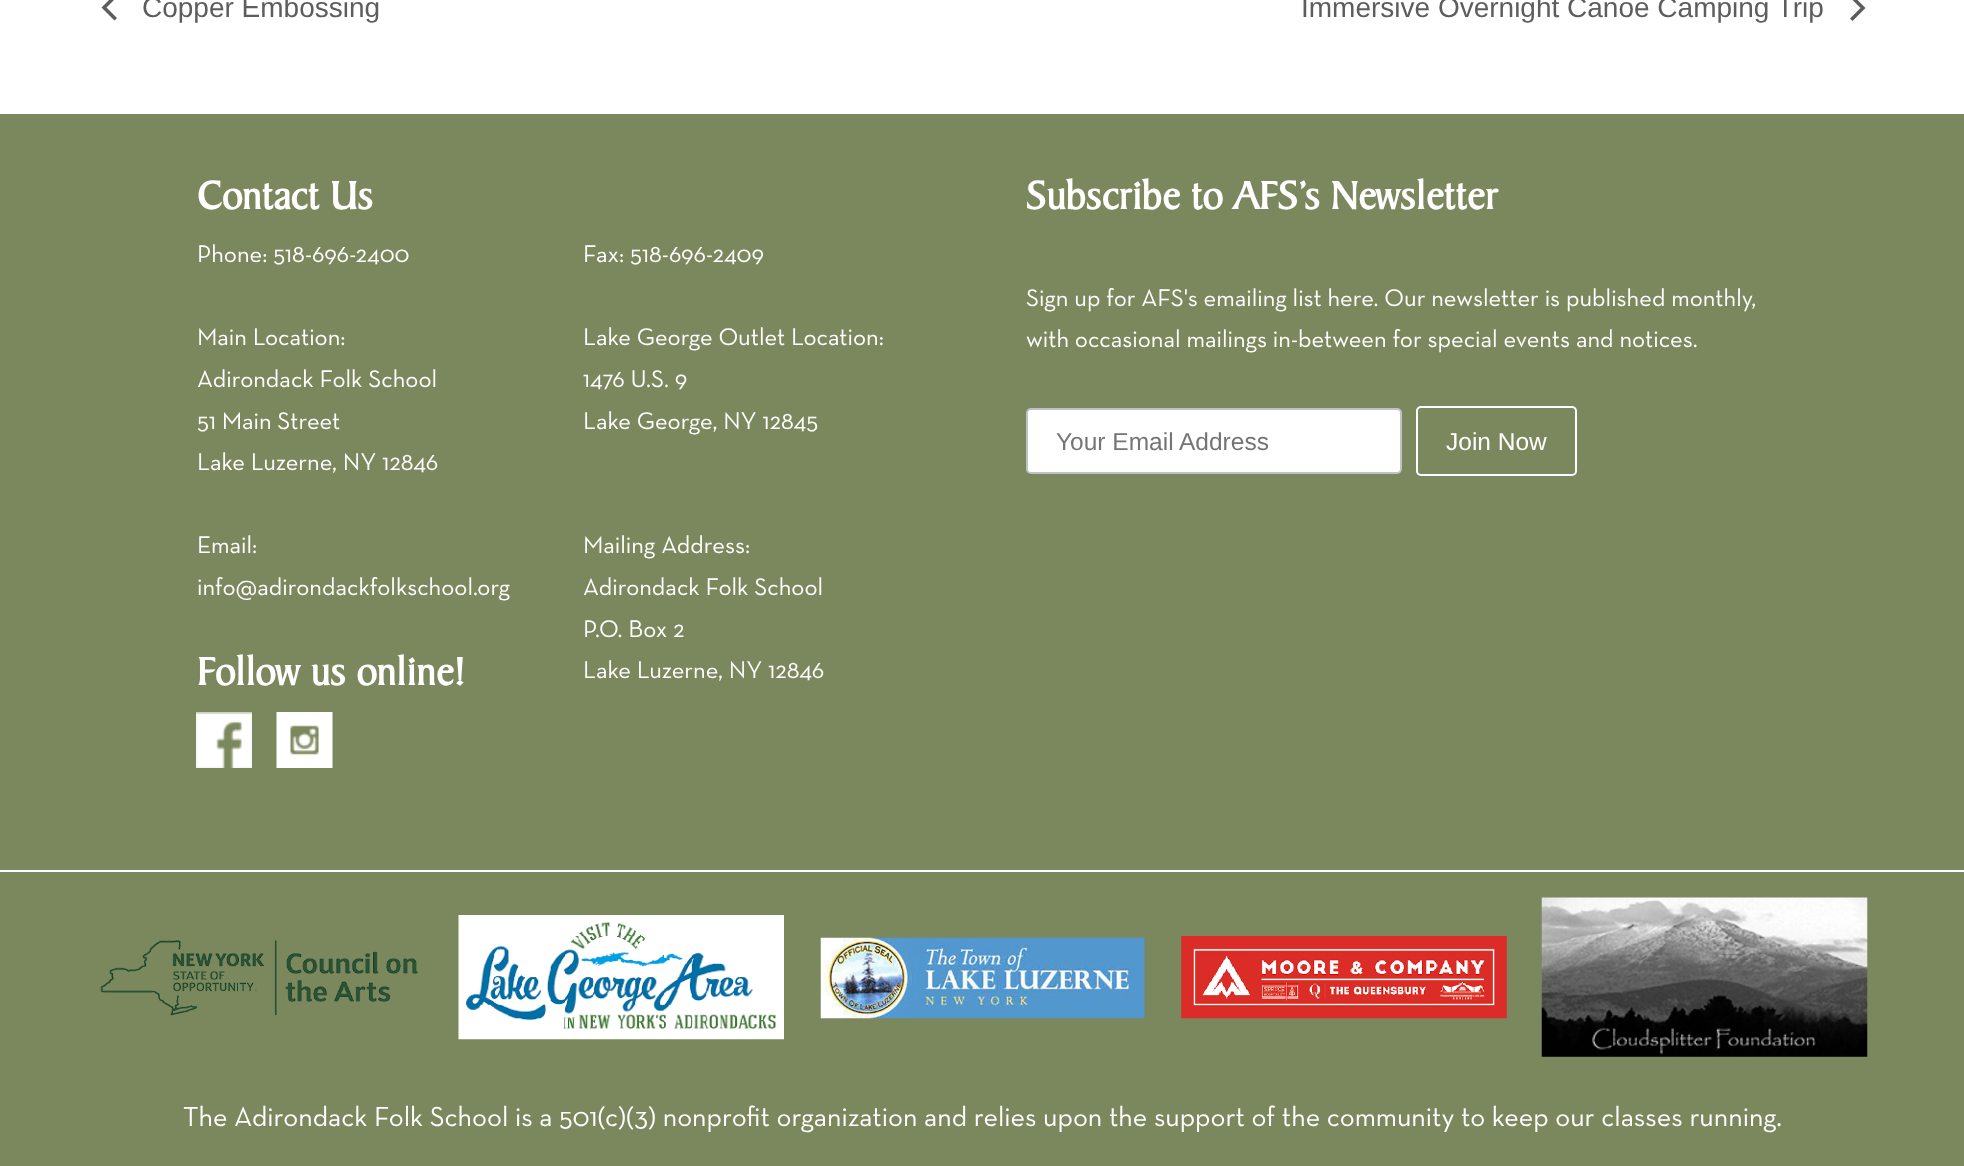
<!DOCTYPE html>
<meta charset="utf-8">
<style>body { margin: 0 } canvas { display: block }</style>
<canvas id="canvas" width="1964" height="1166"></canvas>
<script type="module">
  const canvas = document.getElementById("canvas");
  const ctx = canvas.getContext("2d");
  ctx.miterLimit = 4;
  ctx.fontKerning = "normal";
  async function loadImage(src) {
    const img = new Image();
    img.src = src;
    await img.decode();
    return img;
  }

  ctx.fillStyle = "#ffffff";
  ctx.fillRect(0, 0, 1964, 1166);
  ctx.fillStyle = "#5d5d5d";
  ctx.beginPath();
  ctx.moveTo(117, 18);
  ctx.lineTo(114.5, 20.5);
  ctx.lineTo(101.5, 7.5);
  ctx.lineTo(114.5, -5.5);
  ctx.lineTo(117, -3);
  ctx.lineTo(106.5, 7.5);
  ctx.closePath();
  ctx.fill();
  ctx.font = "28px Liberation Sans";
  ctx.fillText("Copper Embossing", 142, 17);
  ctx.fillText("Immersive Overnight Canoe Camping Trip", 1301, 17);
  ctx.beginPath();
  ctx.moveTo(1850, -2.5);
  ctx.lineTo(1852.5, -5);
  ctx.lineTo(1865.5, 8);
  ctx.lineTo(1852.5, 21);
  ctx.lineTo(1850, 18.5);
  ctx.lineTo(1860.5, 8);
  ctx.closePath();
  ctx.fill();
  ctx.fillStyle = "#7b875c";
  ctx.fillRect(0, 114, 1964, 1052);
  ctx.font = "bold 42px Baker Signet";
  ctx.fillStyle = "#ffffff";
  ctx.fillText("Contact Us", 197, 209);
  ctx.font = "24.5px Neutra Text";
  ctx.fillText("Phone: 518-696-2400", 197, 262);
  ctx.fillText("Main Location:", 197, 345);
  ctx.fillText("Adirondack Folk School", 197, 387);
  ctx.fillText("51 Main Street", 197, 429);
  ctx.fillText("Lake Luzerne, NY 12846", 197, 470);
  ctx.fillText("Email:", 197, 553);
  ctx.fillText("info@adirondackfolkschool.org", 197, 595);
  ctx.font = "bold 42px Baker Signet";
  ctx.fillText("Follow us online!", 197, 685);
  ctx.drawImage(await loadImage("img1.png"), 196, 712, 56, 56);
  ctx.drawImage(await loadImage("img2.png"), 276, 712, 57, 56);
  ctx.font = "24.5px Neutra Text";
  ctx.fillText("Fax: 518-696-2409", 583, 262);
  ctx.fillText("Lake George Outlet Location:", 583, 345);
  ctx.fillText("1476 U.S. 9", 583, 387);
  ctx.fillText("Lake George, NY 12845", 583, 429);
  ctx.fillText("Mailing Address:", 583, 553);
  ctx.fillText("Adirondack Folk School", 583, 595);
  ctx.fillText("P.O. Box 2", 583, 637);
  ctx.fillText("Lake Luzerne, NY 12846", 583, 678);
  ctx.font = "bold 42px Baker Signet";
  ctx.fillText("Subscribe to AFS’s Newsletter", 1026, 209);
  ctx.font = "24.5px Neutra Text";
  ctx.fillText("Sign up for AFS's emailing list here. Our newsletter is published monthly,", 1026, 306);
  ctx.fillText("with occasional mailings in-between for special events and notices.", 1026, 347);
  ctx.beginPath();
  ctx.roundRect(1027, 409, 374, 64, 4);
  ctx.fill();
  ctx.strokeStyle = "#bec3c8";
  ctx.lineWidth = 2;
  ctx.stroke();
  ctx.font = "24.5px Liberation Sans";
  ctx.fillStyle = "#757575";
  ctx.fillText("Your Email Address", 1056, 450);
  ctx.beginPath();
  ctx.roundRect(1417, 407, 159, 68, 4);
  ctx.strokeStyle = "#ffffff";
  ctx.stroke();
  ctx.fillStyle = "#ffffff";
  ctx.fillText("Join Now", 1446, 450);
  ctx.fillRect(0, 870, 1964, 2);
  ctx.drawImage(await loadImage("img3.png"), 100, 940, 318, 76);
  ctx.drawImage(await loadImage("img4.png"), 458, 915, 326, 125);
  ctx.drawImage(await loadImage("img5.png"), 820, 937, 325, 82);
  ctx.drawImage(await loadImage("img6.png"), 1181, 936, 326, 83);
  ctx.drawImage(await loadImage("img7.png"), 1541, 897, 327, 160);
  ctx.font = "28px Neutra Text";
  ctx.fillText("The Adirondack Folk School is a 501(c)(3) nonprofit organization and relies upon the support of the community to keep our classes running.", 183, 1126);
</script>
